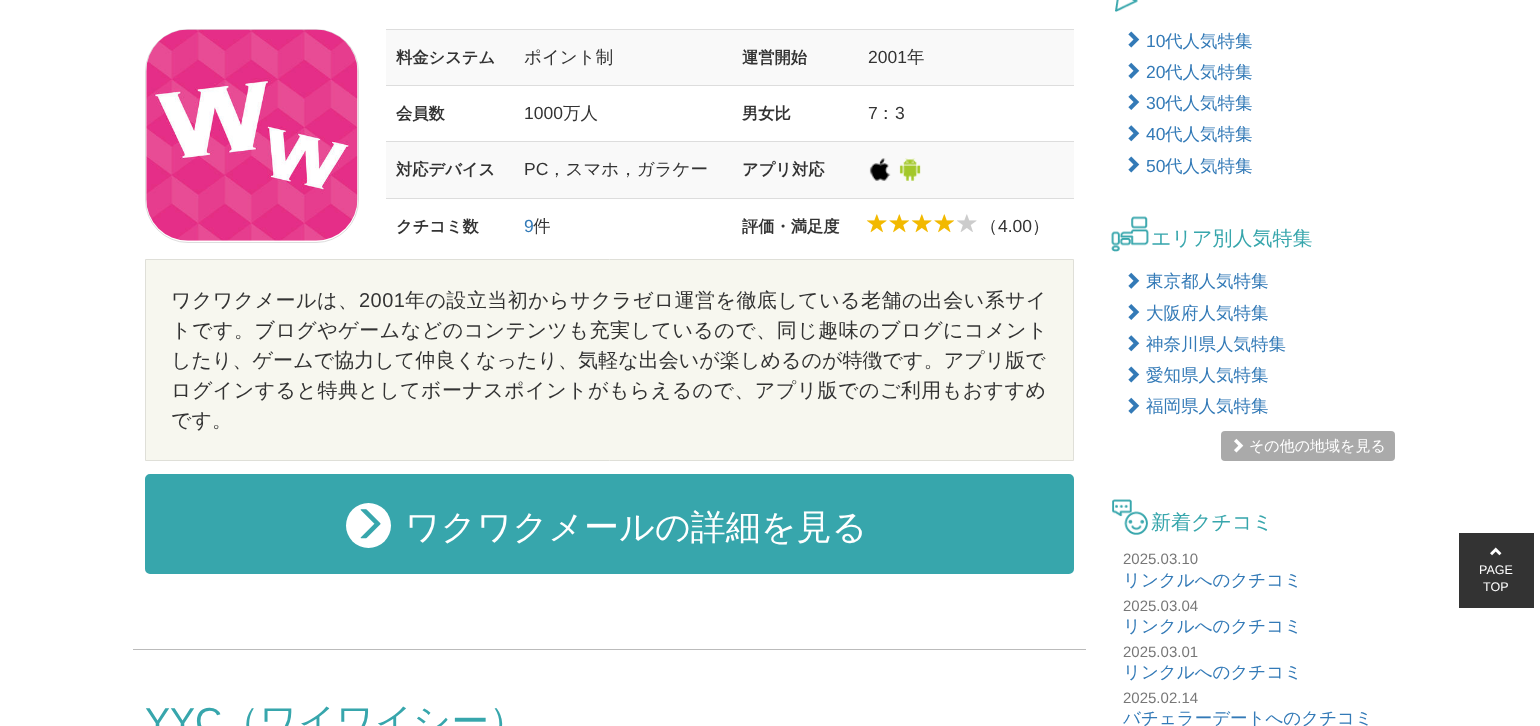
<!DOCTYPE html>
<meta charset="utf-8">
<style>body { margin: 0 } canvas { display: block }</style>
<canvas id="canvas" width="1540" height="726"></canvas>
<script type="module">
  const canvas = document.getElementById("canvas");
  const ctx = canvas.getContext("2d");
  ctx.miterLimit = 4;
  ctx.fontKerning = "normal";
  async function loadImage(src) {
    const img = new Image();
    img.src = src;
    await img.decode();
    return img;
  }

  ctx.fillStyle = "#ffffff";
  ctx.fillRect(0, 0, 1540, 726);
  ctx.beginPath();
  ctx.roundRect(145.5, 29.5, 213, 213, 42.5);
  ctx.strokeStyle = "#dddddd";
  ctx.stroke();
  ctx.drawImage(await loadImage("img1.png"), 146, 29, 212, 212);
  ctx.fillStyle = "#f9f9f9";
  ctx.fillRect(386, 30, 688, 55);
  ctx.font = "bold 16.25px WenQuanYi Zen Hei";
  ctx.fillStyle = "#333333";
  ctx.fillText("料金システム", 396, 63);
  ctx.font = "500 17.5px WenQuanYi Zen Hei";
  ctx.fillText("ポイント制", 524, 63);
  ctx.font = "bold 16.25px WenQuanYi Zen Hei";
  ctx.fillText("運営開始", 742, 63);
  ctx.fillStyle = "#dddddd";
  ctx.fillRect(386, 29, 688, 1);
  ctx.font = "17.5px Liberation Sans";
  ctx.fillStyle = "#333333";
  ctx.fillText("2001", 868, 63);
  ctx.font = "500 17.5px WenQuanYi Zen Hei";
  ctx.fillText("年", 907, 63);
  ctx.font = "bold 16.25px WenQuanYi Zen Hei";
  ctx.fillText("会員数", 396, 119);
  ctx.font = "17.5px Liberation Sans";
  ctx.fillText("1000", 524, 119);
  ctx.font = "500 17.5px WenQuanYi Zen Hei";
  ctx.fillText("万人", 563, 119);
  ctx.font = "bold 16.25px WenQuanYi Zen Hei";
  ctx.fillText("男女比", 742, 119);
  ctx.fillStyle = "#dddddd";
  ctx.fillRect(386, 85, 688, 1);
  ctx.font = "17.5px Liberation Sans";
  ctx.fillStyle = "#333333";
  ctx.fillText("7", 868, 119);
  ctx.font = "500 17.5px WenQuanYi Zen Hei";
  ctx.fillText("：", 877, 119);
  ctx.font = "17.5px Liberation Sans";
  ctx.fillText("3", 895, 119);
  ctx.fillStyle = "#f9f9f9";
  ctx.fillRect(386, 142, 688, 56);
  ctx.fillStyle = "#dddddd";
  ctx.fillRect(386, 141, 688, 1);
  ctx.drawImage(await loadImage("img2.png"), 869, 158, 22, 23);
  ctx.drawImage(await loadImage("img3.png"), 899, 158, 22, 23);
  ctx.font = "bold 16.25px WenQuanYi Zen Hei";
  ctx.fillStyle = "#333333";
  ctx.fillText("対応デバイス", 396, 175);
  ctx.font = "17.5px Liberation Sans";
  ctx.fillText("PC", 524, 175);
  ctx.font = "500 17.5px WenQuanYi Zen Hei";
  ctx.fillText("，スマホ，ガラケー", 548, 175);
  ctx.font = "bold 16.25px WenQuanYi Zen Hei";
  ctx.fillText("アプリ対応", 742, 175);
  ctx.fillText("クチコミ数", 396, 232);
  ctx.font = "17.5px Liberation Sans";
  ctx.fillStyle = "#337ab7";
  ctx.fillText("9", 524, 232);
  ctx.font = "500 17.5px WenQuanYi Zen Hei";
  ctx.fillStyle = "#333333";
  ctx.fillText("件", 533, 232);
  ctx.font = "bold 16.25px WenQuanYi Zen Hei";
  ctx.fillText("評価・満足度", 742, 232);
  ctx.fillStyle = "#dddddd";
  ctx.fillRect(386, 198, 688, 1);
  ctx.drawImage(await loadImage("img4.png"), 866, 214, 21, 19);
  ctx.drawImage(await loadImage("img5.png"), 889, 214, 21, 19);
  ctx.drawImage(await loadImage("img4.png"), 911, 214, 21, 19);
  ctx.drawImage(await loadImage("img5.png"), 934, 214, 21, 19);
  ctx.drawImage(await loadImage("img6.png"), 957, 214, 20, 18);
  ctx.font = "500 17.5px WenQuanYi Zen Hei";
  ctx.fillStyle = "#333333";
  ctx.fillText("（", 980, 232);
  ctx.font = "17.5px Liberation Sans";
  ctx.fillText("4.00", 998, 232);
  ctx.font = "500 17.5px WenQuanYi Zen Hei";
  ctx.fillText("）", 1032, 232);
  ctx.fillStyle = "#f7f7ef";
  ctx.beginPath();
  ctx.rect(145.5, 259.5, 928, 201);
  ctx.fill();
  ctx.strokeStyle = "#dfdfd8";
  ctx.stroke();
  ctx.letterSpacing = "0.45px";
  ctx.font = "500 20px WenQuanYi Zen Hei";
  ctx.fillStyle = "#333333";
  ctx.fillText("ワクワクメールは、", 171, 307);
  ctx.font = "20px Liberation Sans";
  ctx.fillText("2001", 359, 307);
  ctx.font = "500 20px WenQuanYi Zen Hei";
  ctx.fillText("年の設立当初からサクラゼロ運営を徹底している老舗の出会い系サイ", 405, 307);
  ctx.letterSpacing = "0.5px";
  ctx.fillText("トです。ブログやゲームなどのコンテンツも充実しているので、同じ趣味のブログにコメント", 171, 337);
  ctx.letterSpacing = "0.05px";
  ctx.fillText("したり、ゲームで協力して仲良くなったり、気軽な出会いが楽しめるのが特徴です。アプリ版で", 171, 367);
  ctx.letterSpacing = "0.45px";
  ctx.fillText("ログインすると特典としてボーナスポイントがもらえるので、アプリ版でのご利用もおすすめ", 171, 397);
  ctx.letterSpacing = "0px";
  ctx.fillText("です。", 171, 427);
  ctx.fillStyle = "#37a6ac";
  ctx.beginPath();
  ctx.roundRect(147, 476, 925, 96, 3);
  ctx.fill();
  ctx.strokeStyle = "#37a6ac";
  ctx.lineWidth = 4;
  ctx.stroke();
  ctx.fillStyle = "#ffffff";
  ctx.beginPath();
  ctx.arc(368.5, 525.5, 22.5, 0, Math.PI * 2);
  ctx.fill();
  ctx.drawImage(await loadImage("img7.png"), 360, 509, 21, 30);
  ctx.font = "500 35px WenQuanYi Zen Hei";
  ctx.fillText("ワクワクメールの詳細を見る", 405, 539);
  ctx.fillStyle = "#bbbbbb";
  ctx.fillRect(133, 649, 953, 1);
  ctx.font = "37.5px Liberation Sans";
  ctx.fillStyle = "#37a6ac";
  ctx.fillText("YYC", 145, 734);
  ctx.font = "500 37.5px WenQuanYi Zen Hei";
  ctx.fillText("（ワイワイシー）", 222, 734);
  ctx.drawImage(await loadImage("img8.png"), 1115, 0, 23, 12);
  ctx.drawImage(await loadImage("img9.png"), 1128, 31, 12, 17);
  ctx.font = "17.5px Liberation Sans";
  ctx.fillStyle = "#337ab7";
  ctx.fillText("10", 1146, 47);
  ctx.font = "500 17.5px WenQuanYi Zen Hei";
  ctx.fillText("代人気特集", 1165, 47);
  ctx.drawImage(await loadImage("img10.png"), 1128, 62, 12, 17);
  ctx.font = "17.5px Liberation Sans";
  ctx.fillText("20", 1146, 78);
  ctx.font = "500 17.5px WenQuanYi Zen Hei";
  ctx.fillText("代人気特集", 1165, 78);
  ctx.drawImage(await loadImage("img11.png"), 1128, 94, 12, 16);
  ctx.font = "17.5px Liberation Sans";
  ctx.fillText("30", 1146, 109);
  ctx.font = "500 17.5px WenQuanYi Zen Hei";
  ctx.fillText("代人気特集", 1165, 109);
  ctx.drawImage(await loadImage("img12.png"), 1128, 125, 12, 17);
  ctx.font = "17.5px Liberation Sans";
  ctx.fillText("40", 1146, 140);
  ctx.font = "500 17.5px WenQuanYi Zen Hei";
  ctx.fillText("代人気特集", 1165, 140);
  ctx.drawImage(await loadImage("img9.png"), 1128, 156, 12, 17);
  ctx.font = "17.5px Liberation Sans";
  ctx.fillText("50", 1146, 172);
  ctx.font = "500 17.5px WenQuanYi Zen Hei";
  ctx.fillText("代人気特集", 1165, 172);
  ctx.drawImage(await loadImage("img13.png"), 1111, 216, 38, 36);
  ctx.font = "500 20px WenQuanYi Zen Hei";
  ctx.fillStyle = "#37a6ac";
  ctx.fillText("エリア別人気特集", 1151, 245);
  ctx.drawImage(await loadImage("img10.png"), 1128, 272, 12, 17);
  ctx.font = "500 17.5px WenQuanYi Zen Hei";
  ctx.fillStyle = "#337ab7";
  ctx.fillText("東京都人気特集", 1146, 287);
  ctx.drawImage(await loadImage("img11.png"), 1128, 304, 12, 16);
  ctx.fillText("大阪府人気特集", 1146, 319);
  ctx.drawImage(await loadImage("img12.png"), 1128, 335, 12, 17);
  ctx.fillText("神奈川県人気特集", 1146, 350);
  ctx.drawImage(await loadImage("img9.png"), 1128, 366, 12, 17);
  ctx.fillText("愛知県人気特集", 1146, 381);
  ctx.drawImage(await loadImage("img10.png"), 1128, 397, 12, 17);
  ctx.fillText("福岡県人気特集", 1146, 412);
  ctx.fillStyle = "#aaaaaa";
  ctx.beginPath();
  ctx.roundRect(1221, 431, 174, 30, 4);
  ctx.fill();
  ctx.drawImage(await loadImage("img14.png"), 1234, 438, 10, 15);
  ctx.font = "500 15px WenQuanYi Zen Hei";
  ctx.fillStyle = "#ffffff";
  ctx.fillText("その他の地域を見る", 1249, 451);
  ctx.drawImage(await loadImage("img15.png"), 1112, 499, 36, 36);
  ctx.font = "500 20px WenQuanYi Zen Hei";
  ctx.fillStyle = "#37a6ac";
  ctx.fillText("新着クチコミ", 1151, 529);
  ctx.font = "15px Liberation Sans";
  ctx.fillStyle = "#777777";
  ctx.fillText("2025.03.10", 1123, 564);
  ctx.font = "500 17.5px WenQuanYi Zen Hei";
  ctx.fillStyle = "#337ab7";
  ctx.fillText("リンクルへのクチコミ", 1123, 586);
  ctx.font = "15px Liberation Sans";
  ctx.fillStyle = "#777777";
  ctx.fillText("2025.03.04", 1123, 611);
  ctx.font = "500 17.5px WenQuanYi Zen Hei";
  ctx.fillStyle = "#337ab7";
  ctx.fillText("リンクルへのクチコミ", 1123, 632);
  ctx.font = "15px Liberation Sans";
  ctx.fillStyle = "#777777";
  ctx.fillText("2025.03.01", 1123, 657);
  ctx.font = "500 17.5px WenQuanYi Zen Hei";
  ctx.fillStyle = "#337ab7";
  ctx.fillText("リンクルへのクチコミ", 1123, 678);
  ctx.font = "15px Liberation Sans";
  ctx.fillStyle = "#777777";
  ctx.fillText("2025.02.14", 1123, 703);
  ctx.font = "500 17.5px WenQuanYi Zen Hei";
  ctx.fillStyle = "#337ab7";
  ctx.fillText("バチェラーデートへのクチコミ", 1123, 724);
  ctx.fillStyle = "#333333";
  ctx.fillRect(1459, 533, 75, 75);
  ctx.drawImage(await loadImage("img16.png"), 1490, 547, 12, 9);
  ctx.font = "12.5px Liberation Sans";
  ctx.fillStyle = "#ffffff";
  ctx.fillText("PAGE", 1479, 574);
  ctx.fillText("TOP", 1483, 591);
</script>
